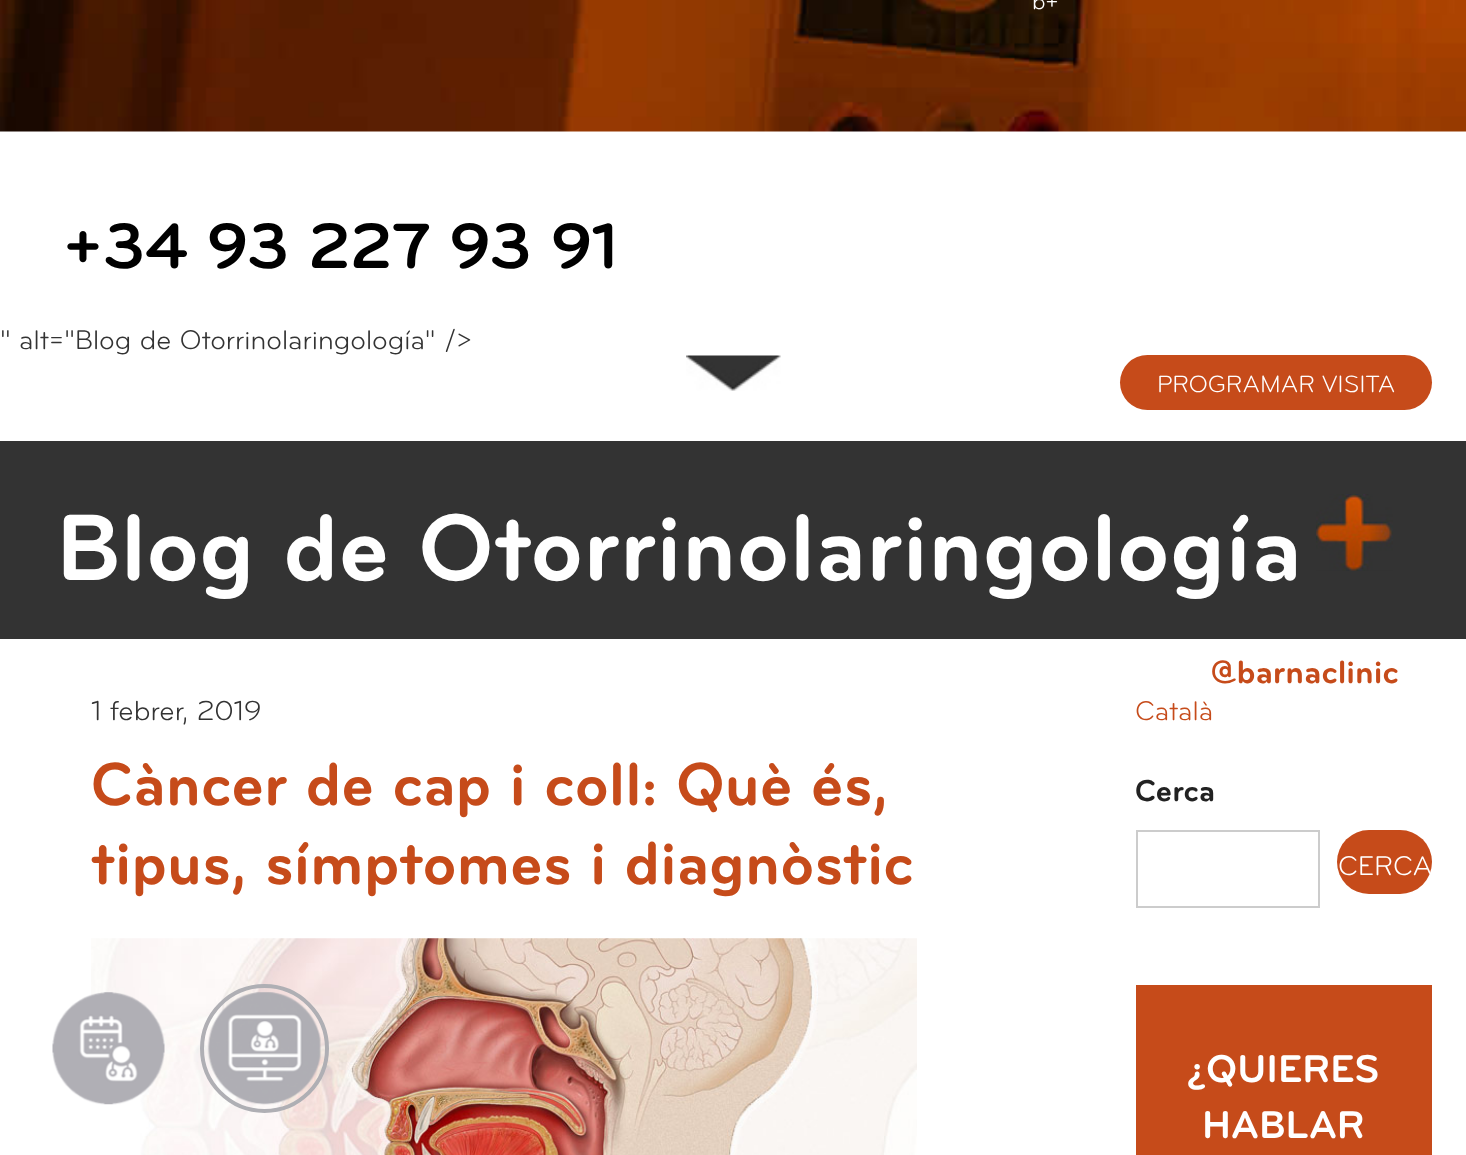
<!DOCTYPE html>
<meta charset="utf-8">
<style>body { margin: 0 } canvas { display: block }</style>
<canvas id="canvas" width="1466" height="1155"></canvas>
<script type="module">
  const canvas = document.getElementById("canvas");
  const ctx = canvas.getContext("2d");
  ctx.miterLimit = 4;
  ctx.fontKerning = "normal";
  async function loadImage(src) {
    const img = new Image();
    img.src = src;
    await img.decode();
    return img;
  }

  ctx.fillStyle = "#ffffff";
  ctx.fillRect(0, 0, 1466, 1155);
  ctx.drawImage(await loadImage("img1.png"), 0, 0, 1466, 132);
  ctx.font = "23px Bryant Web";
  ctx.fillText("b+", 1032, 9);
  ctx.font = "bold 66.5px Bryant Web";
  ctx.fillStyle = "#000000";
  ctx.fillText("+34 93 227 93 91", 63, 268);
  ctx.font = "28px Bryant Web";
  ctx.fillStyle = "#333333";
  ctx.fillText("\" alt=\"Blog de Otorrinolaringología\" />", 0, 349);
  ctx.fillStyle = "#c64b1a";
  ctx.beginPath();
  ctx.roundRect(1120, 355, 312, 55, 27.5);
  ctx.fill();
  ctx.font = "24.5px Bryant Web";
  ctx.fillStyle = "#ffffff";
  ctx.fillText("PROGRAMAR VISITA", 1157, 392);
  ctx.drawImage(await loadImage("img2.png"), 686, 355, 95, 36);
  ctx.fillStyle = "#333333";
  ctx.fillRect(0, 441, 1466, 198);
  ctx.font = "bold 98px Bryant Web";
  ctx.fillStyle = "#ffffff";
  ctx.fillText("Blog de Otorrinolaringología", 56, 580);
  ctx.drawImage(await loadImage("img3.png"), 1316, 494, 77, 77);
  ctx.font = "bold 33.5px Bryant Web";
  ctx.fillStyle = "#c64b1a";
  ctx.fillText("@barnaclinic", 1211, 683);
  ctx.font = "28.5px Bryant Web";
  ctx.fillStyle = "#333333";
  ctx.fillText("1 febrer, 2019", 91, 720);
  ctx.font = "bold 63px Bryant Web";
  ctx.fillStyle = "#c64b1a";
  ctx.fillText("Càncer de cap i coll: Què és,", 91, 805);
  ctx.fillText("tipus, símptomes i diagnòstic", 91, 884);
  ctx.drawImage(await loadImage("img4.png"), 91, 938, 826, 217);
  ctx.font = "28px Bryant Web";
  ctx.fillText("Català", 1135, 720);
  ctx.font = "bold 31.5px Bryant Web";
  ctx.fillStyle = "#222222";
  ctx.fillText("Cerca", 1135, 801);
  ctx.strokeStyle = "#cccccc";
  ctx.lineWidth = 2;
  ctx.strokeRect(1137, 831, 182, 76);
  ctx.fillStyle = "#c64b1a";
  ctx.beginPath();
  ctx.roundRect(1337, 830, 95, 64, 32);
  ctx.fill();
  ctx.save();
  ctx.beginPath();
  ctx.roundRect(1337, 830, 95, 64, 32);
  ctx.clip();
  ctx.font = "28px Bryant Web";
  ctx.fillStyle = "#ffffff";
  ctx.fillText("CERCA", 1338, 875);
  ctx.restore();
  ctx.fillRect(1136, 985, 296, 170);
  ctx.font = "bold 40.25px Bryant Web";
  ctx.fillStyle = "#ffffff";
  ctx.fillText("¿QUIERES", 1187, 1082);
  ctx.fillText("HABLAR", 1202, 1138);
  ctx.drawImage(await loadImage("img5.png"), 52, 992, 113, 113);
  ctx.drawImage(await loadImage("img6.png"), 207, 992, 114, 113);
  ctx.beginPath();
  ctx.arc(264.5, 1048.5, 62.5, 0, Math.PI * 2);
  ctx.strokeStyle = "#afafb4";
  ctx.lineWidth = 4;
  ctx.stroke();
</script>
